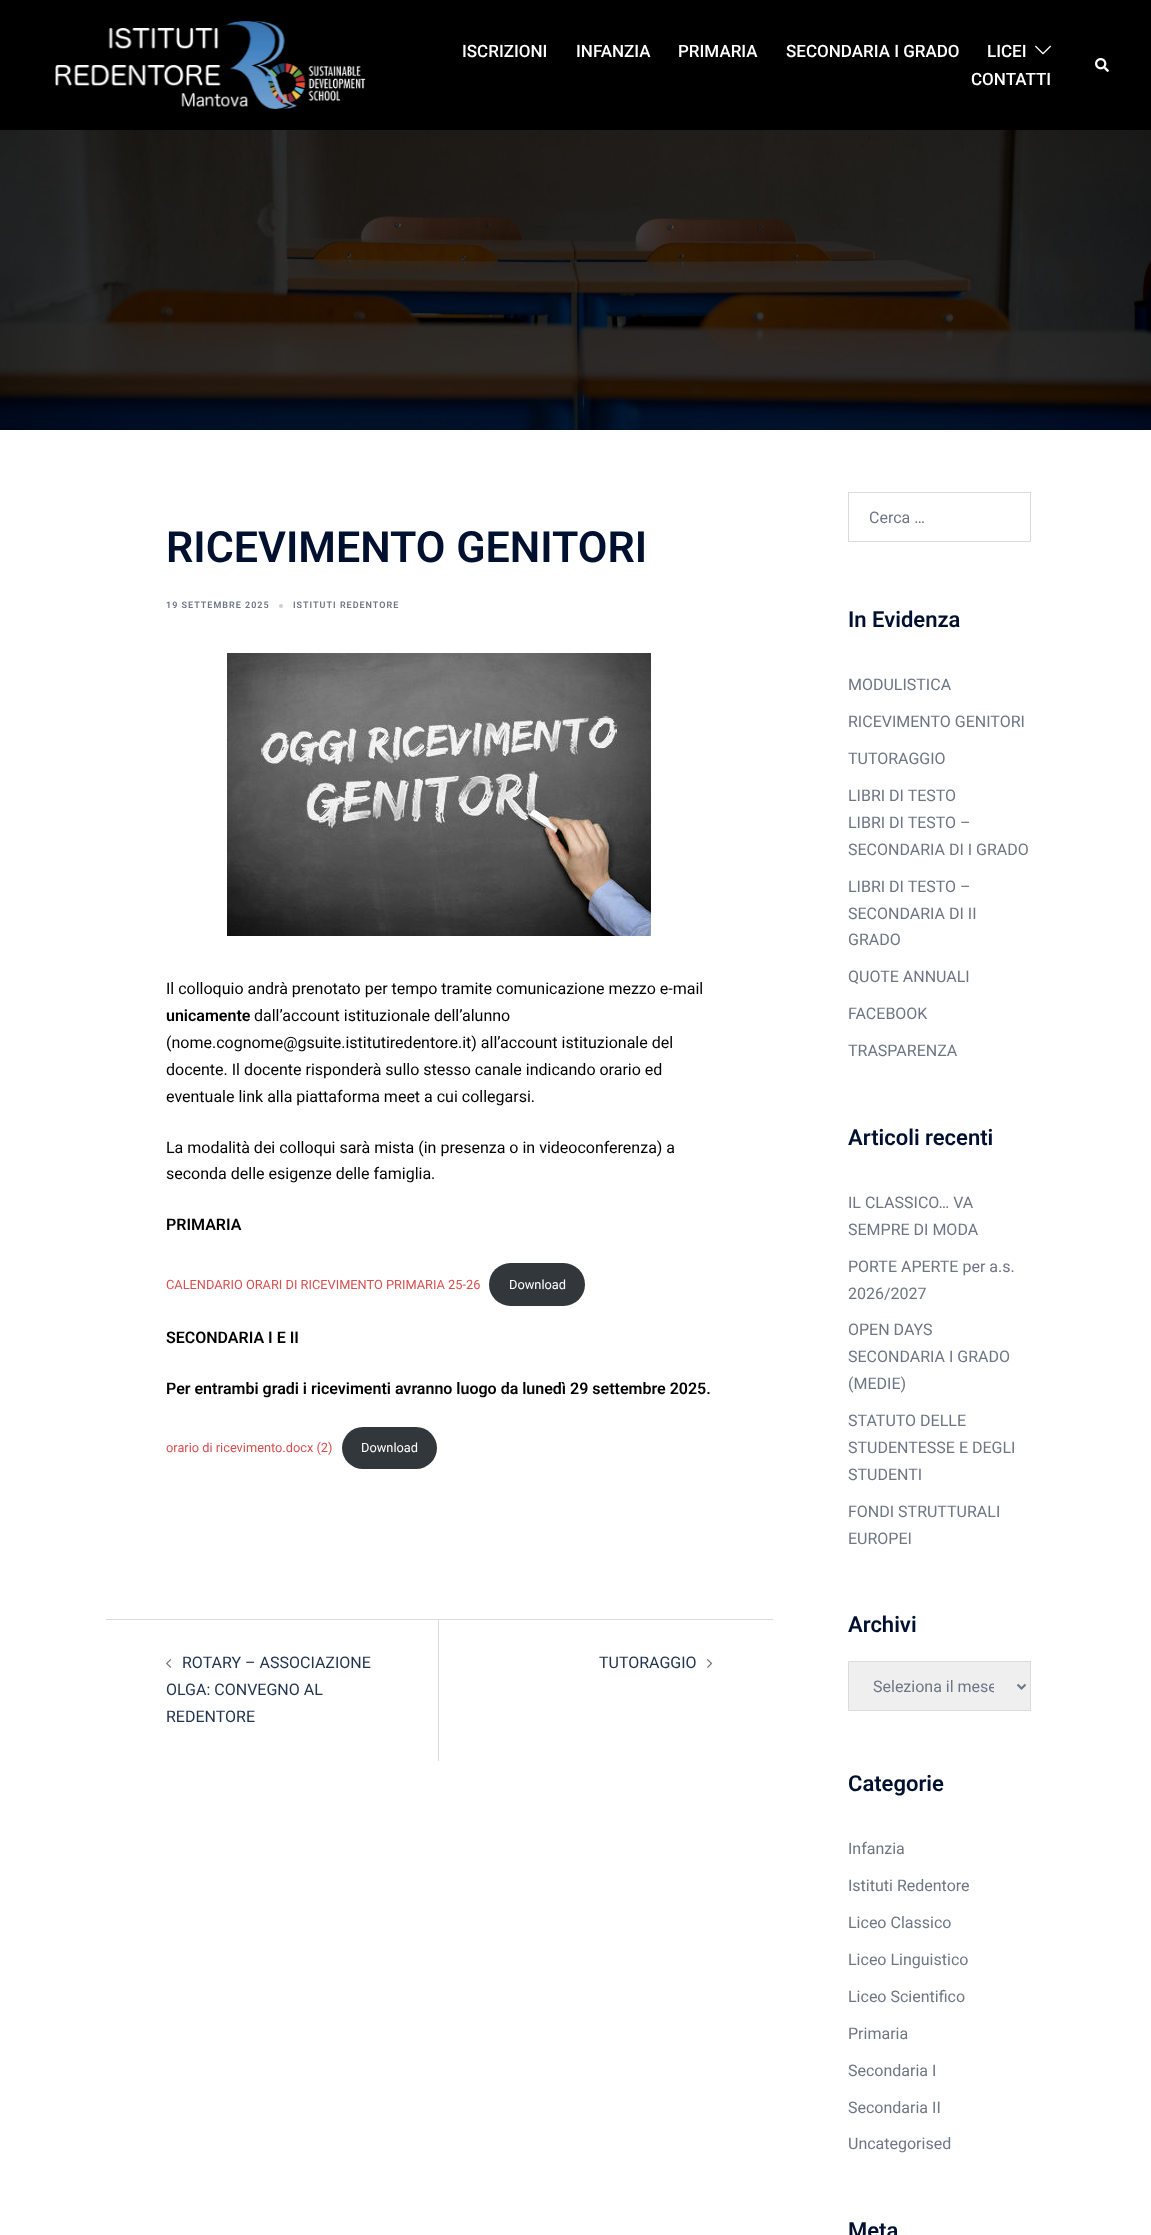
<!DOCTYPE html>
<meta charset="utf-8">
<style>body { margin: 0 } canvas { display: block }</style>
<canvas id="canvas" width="1151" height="2235"></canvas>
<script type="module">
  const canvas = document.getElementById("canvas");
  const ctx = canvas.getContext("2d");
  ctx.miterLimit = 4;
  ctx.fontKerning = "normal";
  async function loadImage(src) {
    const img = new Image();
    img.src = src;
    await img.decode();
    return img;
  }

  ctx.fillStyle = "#ffffff";
  ctx.fillRect(0, 0, 1151, 2235);
  ctx.fillStyle = "#000000";
  ctx.fillRect(0, 0, 1151, 130);
  ctx.drawImage(await loadImage("img1.png"), 55, 21, 311, 88);
  ctx.font = "500 17px Roboto";
  ctx.fillStyle = "#ffffff";
  ctx.fillText("ISCRIZIONI", 462, 57);
  ctx.fillText("INFANZIA", 576, 57);
  ctx.fillText("PRIMARIA", 678, 57);
  ctx.fillText("SECONDARIA I GRADO", 786, 57);
  ctx.fillText("LICEI", 987, 57);
  ctx.drawImage(await loadImage("img2.png"), 1035, 45, 16, 10);
  ctx.fillText("CONTATTI", 971, 85);
  ctx.drawImage(await loadImage("img3.png"), 1095, 58, 14, 14);
  ctx.drawImage(await loadImage("img4.png"), 0, 130, 1151, 300);
  ctx.font = "600 43px Roboto";
  ctx.fillStyle = "#00102e";
  ctx.fillText("RICEVIMENTO GENITORI", 166, 562);
  ctx.letterSpacing = "1px";
  ctx.font = "600 9px Roboto";
  ctx.fillStyle = "#6d7685";
  ctx.fillText("19 SETTEMBRE 2025", 166, 608);
  ctx.fillStyle = "#cccfd5";
  ctx.beginPath();
  ctx.arc(281, 606, 2, 0, Math.PI * 2);
  ctx.fill();
  ctx.fillStyle = "#6d7685";
  ctx.fillText("ISTITUTI REDENTORE", 293, 608);
  ctx.drawImage(await loadImage("img5.png"), 227, 653, 424, 283);
  ctx.letterSpacing = "0px";
  ctx.font = "16px Roboto";
  ctx.fillStyle = "#000000";
  ctx.fillText("Il colloquio andrà prenotato per tempo tramite comunicazione mezzo e-mail", 166, 994);
  ctx.font = "600 16px Roboto";
  ctx.fillText("unicamente", 166, 1021);
  ctx.font = "16px Roboto";
  ctx.fillText("dall’account istituzionale dell’alunno", 254, 1021);
  ctx.fillText("(nome.cognome@gsuite.istitutiredentore.it) all’account istituzionale del", 166, 1048);
  ctx.fillText("docente. Il docente risponderà sullo stesso canale indicando orario ed", 166, 1075);
  ctx.fillText("eventuale link alla piattaforma meet a cui collegarsi.", 166, 1102);
  ctx.fillText("La modalità dei colloqui sarà mista (in presenza o in videoconferenza) a", 166, 1153);
  ctx.fillText("seconda delle esigenze delle famiglia.", 166, 1179);
  ctx.font = "600 16px Roboto";
  ctx.fillText("PRIMARIA", 166, 1230);
  ctx.font = "12.8px Roboto";
  ctx.fillStyle = "#d65050";
  ctx.fillText("CALENDARIO ORARI DI RICEVIMENTO PRIMARIA 25-26", 166, 1289);
  ctx.fillStyle = "#32373c";
  ctx.beginPath();
  ctx.roundRect(489, 1263, 96, 43, 21.5);
  ctx.fill();
  ctx.fillStyle = "#ffffff";
  ctx.fillText("Download", 509, 1289);
  ctx.font = "600 16px Roboto";
  ctx.fillStyle = "#000000";
  ctx.fillText("SECONDARIA I E II", 166, 1343);
  ctx.fillText("Per entrambi gradi i ricevimenti avranno luogo da lunedì 29 settembre 2025.", 166, 1394);
  ctx.font = "12.8px Roboto";
  ctx.fillStyle = "#d65050";
  ctx.fillText("orario di ricevimento.docx (2)", 166, 1452);
  ctx.fillStyle = "#32373c";
  ctx.beginPath();
  ctx.roundRect(342, 1427, 95, 42, 21);
  ctx.fill();
  ctx.fillStyle = "#ffffff";
  ctx.fillText("Download", 361, 1452);
  ctx.fillStyle = "#dbdbdb";
  ctx.fillRect(106, 1619, 667, 1);
  ctx.fillRect(438, 1620, 1, 141);
  ctx.drawImage(await loadImage("img6.png"), 166, 1659, 6, 9);
  ctx.font = "16px Roboto";
  ctx.fillStyle = "#233452";
  ctx.fillText("ROTARY – ASSOCIAZIONE", 182, 1668);
  ctx.fillText("OLGA: CONVEGNO AL", 166, 1695);
  ctx.fillText("REDENTORE", 166, 1722);
  ctx.fillText("TUTORAGGIO", 599, 1668);
  ctx.drawImage(await loadImage("img7.png"), 707, 1659, 6, 9);
  ctx.strokeStyle = "#dbdbdb";
  ctx.strokeRect(848.5, 492.5, 182, 49);
  ctx.fillStyle = "#6d7685";
  ctx.fillText("Cerca …", 869, 523);
  ctx.font = "600 22px Roboto";
  ctx.fillStyle = "#00102e";
  ctx.fillText("In Evidenza", 848, 627);
  ctx.font = "16px Roboto";
  ctx.fillStyle = "#6d7685";
  ctx.fillText("MODULISTICA", 848, 690);
  ctx.fillText("RICEVIMENTO GENITORI", 848, 727);
  ctx.fillText("TUTORAGGIO", 848, 764);
  ctx.fillText("LIBRI DI TESTO", 848, 801);
  ctx.fillText("LIBRI DI TESTO –", 848, 828);
  ctx.fillText("SECONDARIA DI I GRADO", 848, 855);
  ctx.fillText("LIBRI DI TESTO –", 848, 892);
  ctx.fillText("SECONDARIA DI II", 848, 919);
  ctx.fillText("GRADO", 848, 945);
  ctx.fillText("QUOTE ANNUALI", 848, 982);
  ctx.fillText("FACEBOOK", 848, 1019);
  ctx.fillText("TRASPARENZA", 848, 1056);
  ctx.font = "600 22px Roboto";
  ctx.fillStyle = "#00102e";
  ctx.fillText("Articoli recenti", 848, 1145);
  ctx.font = "16px Roboto";
  ctx.fillStyle = "#6d7685";
  ctx.fillText("IL CLASSICO… VA", 848, 1208);
  ctx.fillText("SEMPRE DI MODA", 848, 1235);
  ctx.fillText("PORTE APERTE per a.s.", 848, 1272);
  ctx.fillText("2026/2027", 848, 1299);
  ctx.fillText("OPEN DAYS", 848, 1335);
  ctx.fillText("SECONDARIA I GRADO", 848, 1362);
  ctx.fillText("(MEDIE)", 848, 1389);
  ctx.fillText("STATUTO DELLE", 848, 1426);
  ctx.fillText("STUDENTESSE E DEGLI", 848, 1453);
  ctx.fillText("STUDENTI", 848, 1480);
  ctx.fillText("FONDI STRUTTURALI", 848, 1517);
  ctx.fillText("EUROPEI", 848, 1544);
  ctx.font = "600 22px Roboto";
  ctx.fillStyle = "#00102e";
  ctx.fillText("Archivi", 848, 1632);
  ctx.fillStyle = "#efefef";
  ctx.beginPath();
  ctx.rect(848.5, 1661.5, 182, 49);
  ctx.fill();
  ctx.stroke();
  ctx.beginPath();
  ctx.moveTo(1017.5, 1684.5);
  ctx.lineTo(1021.5, 1688.5);
  ctx.lineTo(1025.5, 1684.5);
  ctx.strokeStyle = "#6d7685";
  ctx.lineWidth = 2;
  ctx.stroke();
  ctx.save();
  ctx.beginPath();
  ctx.rect(873, 1676, 121, 21);
  ctx.clip();
  ctx.font = "16px Roboto";
  ctx.fillStyle = "#6d7685";
  ctx.fillText("Seleziona il mese", 873, 1692);
  ctx.restore();
  ctx.fillStyle = "#00102e";
  ctx.fillText("Categorie", 848, 1791);
  ctx.font = "16px Roboto";
  ctx.fillStyle = "#6d7685";
  ctx.fillText("Infanzia", 848, 1854);
  ctx.fillText("Istituti Redentore", 848, 1891);
  ctx.fillText("Liceo Classico", 848, 1928);
  ctx.fillText("Liceo Linguistico", 848, 1965);
  ctx.fillText("Liceo Scientifico", 848, 2002);
  ctx.fillText("Primaria", 848, 2039);
  ctx.fillText("Secondaria I", 848, 2076);
  ctx.fillText("Secondaria II", 848, 2113);
  ctx.fillText("Uncategorised", 848, 2149);
  ctx.font = "600 22px Roboto";
  ctx.fillStyle = "#00102e";
  ctx.fillText("Meta", 848, 2238);
</script>
